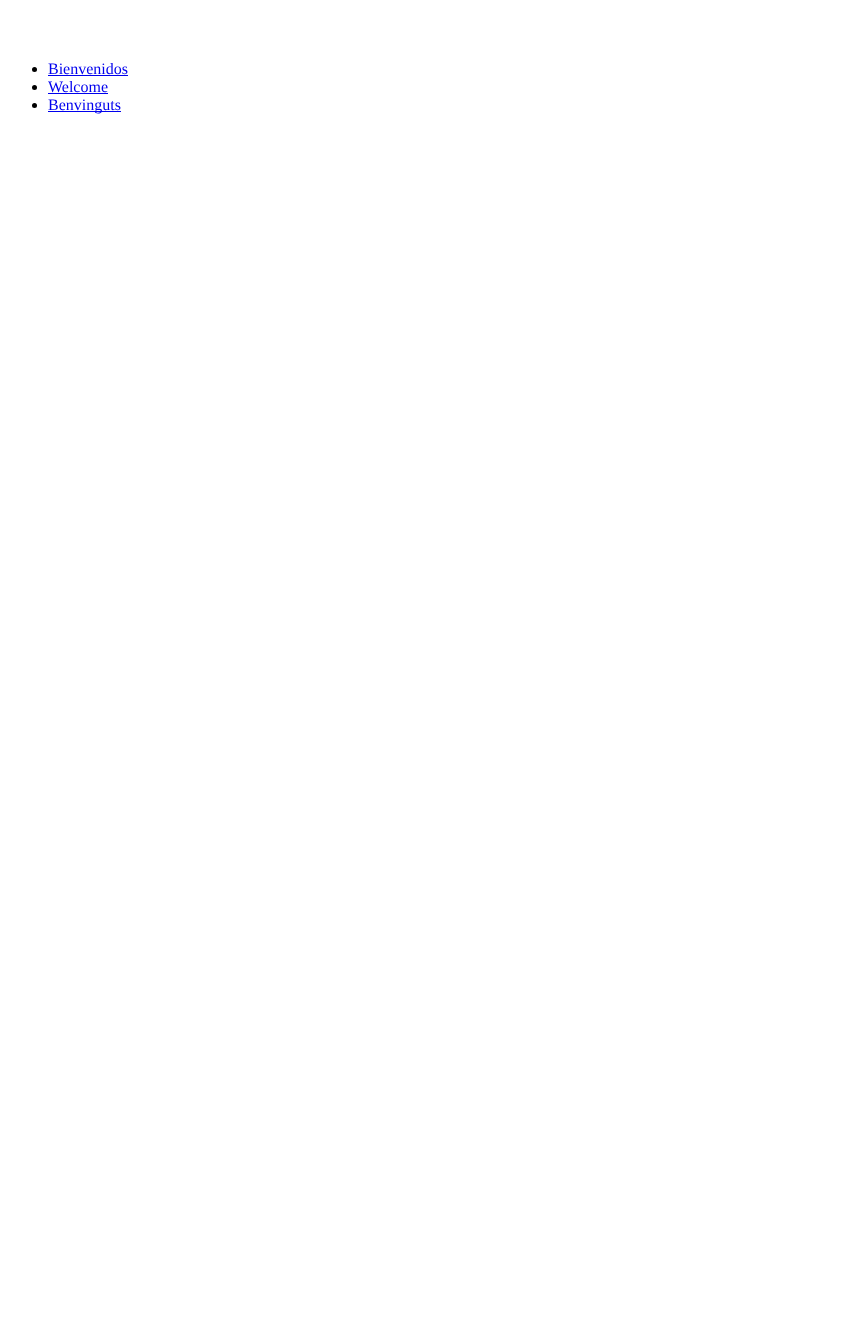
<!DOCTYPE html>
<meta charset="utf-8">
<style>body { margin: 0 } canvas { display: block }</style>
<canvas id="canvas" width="855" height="1323"></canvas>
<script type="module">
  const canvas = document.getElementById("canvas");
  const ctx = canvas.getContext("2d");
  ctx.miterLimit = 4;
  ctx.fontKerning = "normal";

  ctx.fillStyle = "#ffffff";
  ctx.fillRect(0, 0, 855, 1323);
  ctx.fillStyle = "#000000";
  ctx.beginPath();
  ctx.arc(34.5, 69.5, 2.5, 0, Math.PI * 2);
  ctx.fill();
  ctx.font = "16px Liberation Serif";
  ctx.fillStyle = "#0000ee";
  ctx.fillText("Bienvenidos", 48, 74);
  ctx.fillRect(48, 75, 80, 1);
  ctx.fillStyle = "#000000";
  ctx.beginPath();
  ctx.arc(34.5, 87.5, 2.5, 0, Math.PI * 2);
  ctx.fill();
  ctx.fillStyle = "#0000ee";
  ctx.fillText("Welcome", 48, 92);
  ctx.fillRect(48, 93, 60, 1);
  ctx.fillStyle = "#000000";
  ctx.beginPath();
  ctx.arc(34.5, 105.5, 2.5, 0, Math.PI * 2);
  ctx.fill();
  ctx.fillStyle = "#0000ee";
  ctx.fillRect(48, 111, 73, 1);
  ctx.fillText("Benvinguts", 48, 110);
</script>
